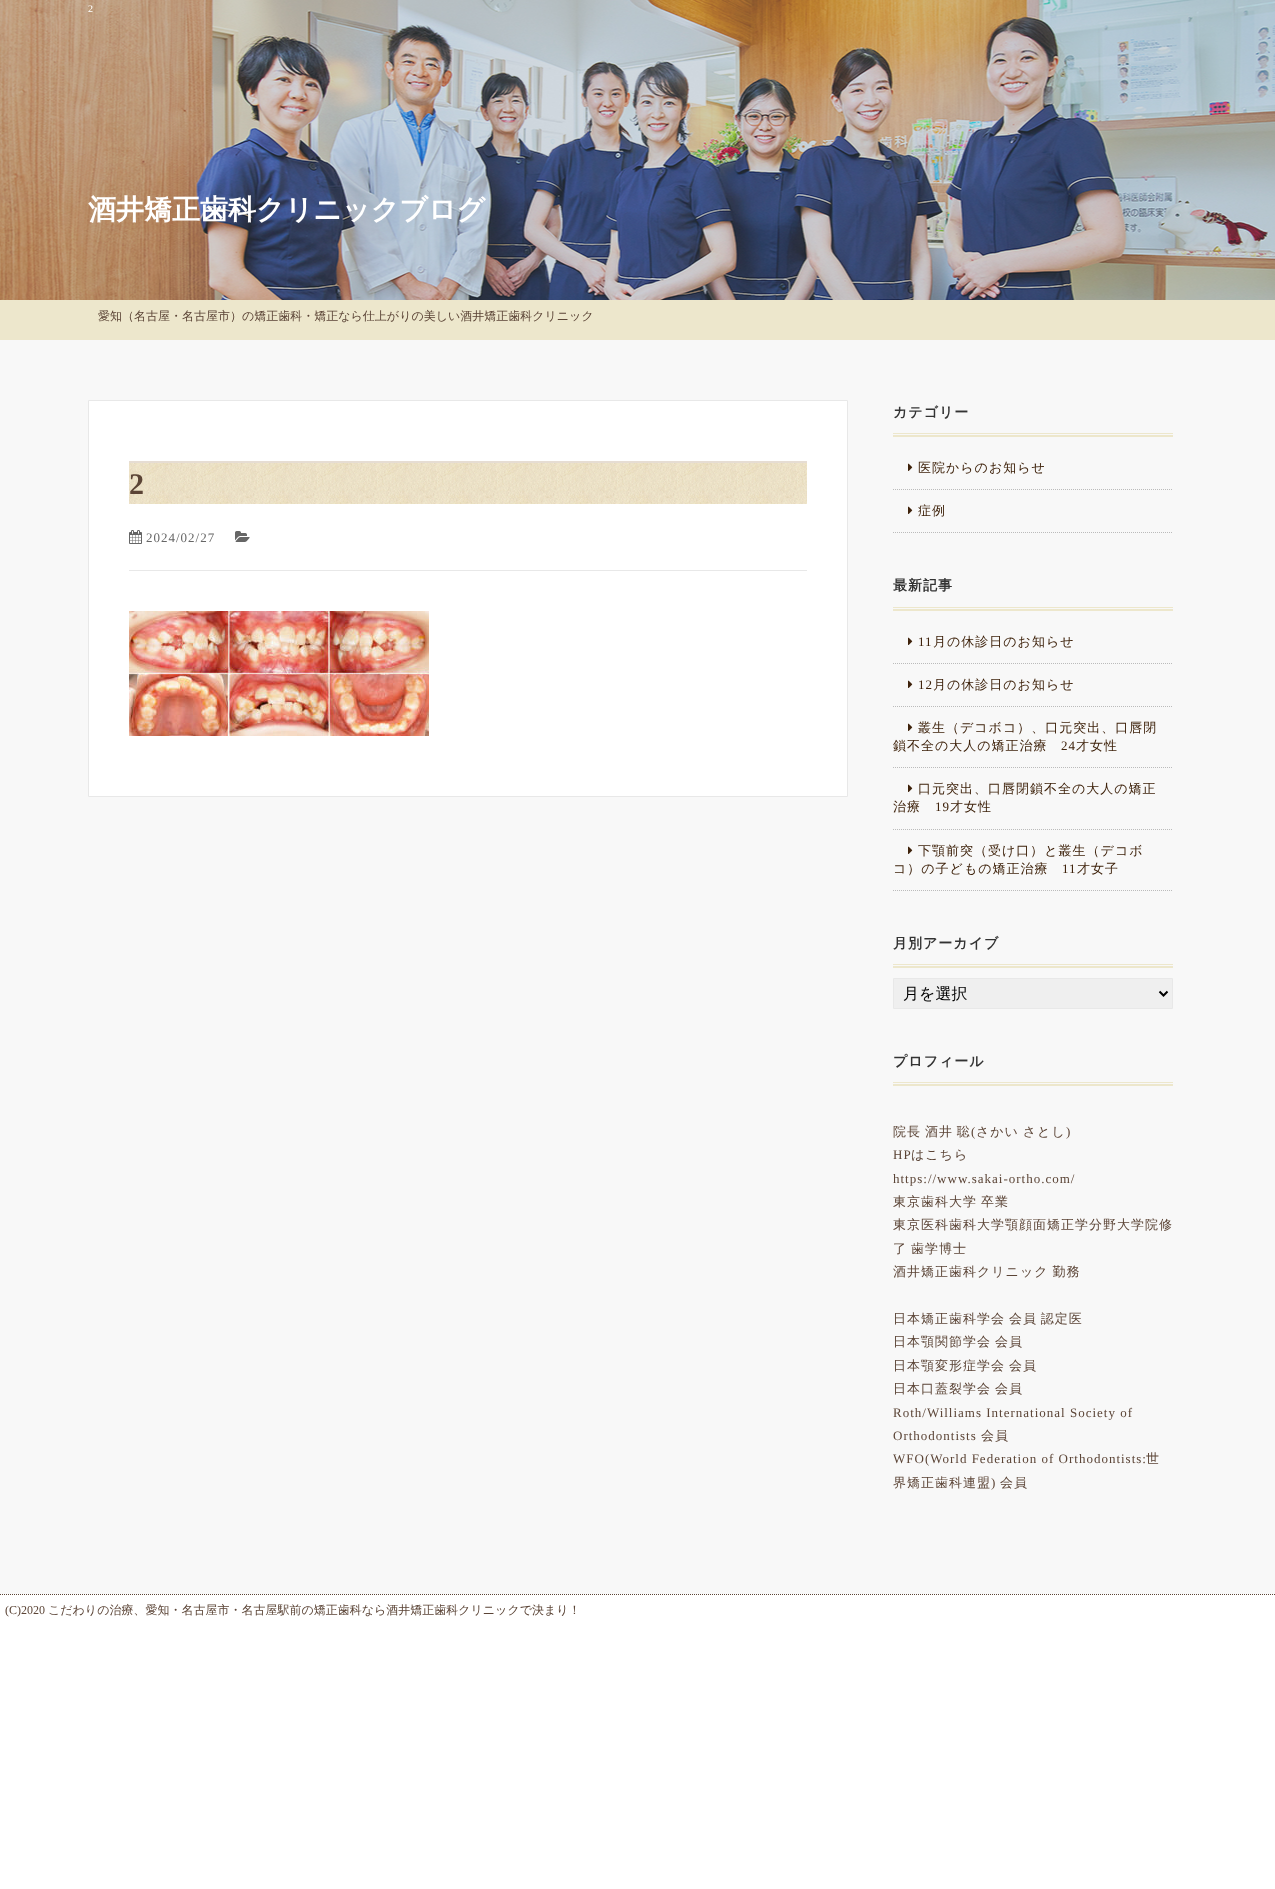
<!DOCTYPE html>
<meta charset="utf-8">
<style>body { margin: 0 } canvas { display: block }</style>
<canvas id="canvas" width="1275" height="1889"></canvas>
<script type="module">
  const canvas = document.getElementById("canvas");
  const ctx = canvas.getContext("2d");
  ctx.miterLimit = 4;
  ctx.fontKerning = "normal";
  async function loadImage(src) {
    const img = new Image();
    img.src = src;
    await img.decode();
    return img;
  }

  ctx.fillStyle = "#ffffff";
  ctx.fillRect(0, 0, 1275, 1889);
  ctx.drawImage(await loadImage("img1.png"), 0, 0, 1275, 300);
  ctx.font = "10px Liberation Serif";
  ctx.fillText("2", 88, 12);
  ctx.font = "bold 28px WenQuanYi Zen Hei";
  ctx.fillText("酒井矯正歯科クリニックブログ", 88, 219);
  ctx.fillStyle = "#f8f8f8";
  ctx.fillRect(0, 340, 1275, 1254);
  ctx.fillStyle = "#ede7cc";
  ctx.fillRect(0, 300, 1275, 40);
  ctx.font = "500 12px WenQuanYi Zen Hei";
  ctx.fillStyle = "#5b4436";
  ctx.fillText("愛知（名古屋・名古屋市）の矯正歯科・矯正なら仕上がりの美しい酒井矯正歯科クリニック", 98, 320);
  ctx.fillStyle = "#ffffff";
  ctx.beginPath();
  ctx.rect(88.5, 400.5, 759, 396);
  ctx.fill();
  ctx.strokeStyle = "#e8e8e8";
  ctx.stroke();
  ctx.drawImage(await loadImage("img2.png"), 129, 461, 678, 43);
  ctx.letterSpacing = "1px";
  ctx.font = "bold 30px Liberation Serif";
  ctx.fillStyle = "#5b4436";
  ctx.fillText("2", 129, 494);
  ctx.drawImage(await loadImage("img3.png"), 129, 530, 13, 14);
  ctx.font = "13px Liberation Serif";
  ctx.fillStyle = "#666666";
  ctx.fillText("2024/02/27", 146, 542);
  ctx.drawImage(await loadImage("img4.png"), 235, 531, 15, 11);
  ctx.fillStyle = "#e8e8e8";
  ctx.fillRect(129, 570, 678, 1);
  ctx.drawImage(await loadImage("img5.png"), 129, 611, 300, 125);
  ctx.font = "bold 14px WenQuanYi Zen Hei";
  ctx.fillStyle = "#333333";
  ctx.fillText("カテゴリー", 893, 417);
  ctx.fillStyle = "#ede7cc";
  ctx.fillRect(893, 433, 280, 1);
  ctx.fillRect(893, 435, 280, 2);
  ctx.beginPath();
  ctx.moveTo(893, 489.5);
  ctx.lineTo(1173, 489.5);
  ctx.strokeStyle = "#bbbbbb";
  ctx.setLineDash([1, 1]);
  ctx.stroke();
  ctx.drawImage(await loadImage("img6.png"), 908, 463, 5, 8);
  ctx.font = "500 13px WenQuanYi Zen Hei";
  ctx.fillStyle = "#3e220b";
  ctx.fillText("医院からのお知らせ", 918, 472);
  ctx.beginPath();
  ctx.moveTo(893, 532.5);
  ctx.lineTo(1173, 532.5);
  ctx.stroke();
  ctx.drawImage(await loadImage("img6.png"), 908, 506, 5, 8);
  ctx.fillText("症例", 918, 515);
  ctx.font = "bold 14px WenQuanYi Zen Hei";
  ctx.fillStyle = "#333333";
  ctx.fillText("最新記事", 893, 590);
  ctx.fillStyle = "#ede7cc";
  ctx.fillRect(893, 607, 280, 1);
  ctx.fillRect(893, 609, 280, 2);
  ctx.beginPath();
  ctx.moveTo(893, 663.5);
  ctx.lineTo(1173, 663.5);
  ctx.stroke();
  ctx.drawImage(await loadImage("img6.png"), 908, 637, 5, 8);
  ctx.font = "13px Liberation Serif";
  ctx.fillStyle = "#3e220b";
  ctx.fillText("11", 918, 646);
  ctx.font = "500 13px WenQuanYi Zen Hei";
  ctx.fillText("月の休診日のお知らせ", 933, 646);
  ctx.beginPath();
  ctx.moveTo(893, 706.5);
  ctx.lineTo(1173, 706.5);
  ctx.stroke();
  ctx.drawImage(await loadImage("img6.png"), 908, 680, 5, 8);
  ctx.font = "13px Liberation Serif";
  ctx.fillText("12", 918, 689);
  ctx.font = "500 13px WenQuanYi Zen Hei";
  ctx.fillText("月の休診日のお知らせ", 933, 689);
  ctx.beginPath();
  ctx.moveTo(893, 767.5);
  ctx.lineTo(1173, 767.5);
  ctx.stroke();
  ctx.drawImage(await loadImage("img6.png"), 908, 723, 5, 8);
  ctx.fillText("叢生（デコボコ）、口元突出、口唇閉", 918, 732);
  ctx.fillText("鎖不全の大人の矯正治療", 893, 750);
  ctx.font = "13px Liberation Serif";
  ctx.fillText("24", 1061, 750);
  ctx.font = "500 13px WenQuanYi Zen Hei";
  ctx.fillText("才女性", 1076, 750);
  ctx.beginPath();
  ctx.moveTo(893, 829.5);
  ctx.lineTo(1173, 829.5);
  ctx.stroke();
  ctx.drawImage(await loadImage("img6.png"), 908, 784, 5, 8);
  ctx.fillText("口元突出、口唇閉鎖不全の大人の矯正", 918, 793);
  ctx.fillText("治療", 893, 811);
  ctx.font = "13px Liberation Serif";
  ctx.fillText("19", 935, 811);
  ctx.font = "500 13px WenQuanYi Zen Hei";
  ctx.fillText("才女性", 950, 811);
  ctx.beginPath();
  ctx.moveTo(893, 890.5);
  ctx.lineTo(1173, 890.5);
  ctx.stroke();
  ctx.drawImage(await loadImage("img6.png"), 908, 846, 5, 8);
  ctx.fillText("下顎前突（受け口）と叢生（デコボ", 918, 855);
  ctx.fillText("コ）の子どもの矯正治療", 893, 873);
  ctx.font = "13px Liberation Serif";
  ctx.fillText("11", 1062, 873);
  ctx.font = "500 13px WenQuanYi Zen Hei";
  ctx.fillText("才女子", 1077, 873);
  ctx.font = "bold 14px WenQuanYi Zen Hei";
  ctx.fillStyle = "#333333";
  ctx.fillText("月別アーカイブ", 893, 948);
  ctx.fillStyle = "#ede7cc";
  ctx.fillRect(893, 964, 280, 1);
  ctx.fillRect(893, 966, 280, 2);
  ctx.fillStyle = "#efefef";
  ctx.beginPath();
  ctx.rect(893.5, 978.5, 279, 30);
  ctx.fill();
  ctx.strokeStyle = "#e8e8e8";
  ctx.setLineDash([]);
  ctx.stroke();
  ctx.beginPath();
  ctx.moveTo(1159.5, 991.5);
  ctx.lineTo(1163.5, 995.5);
  ctx.lineTo(1167.5, 991.5);
  ctx.strokeStyle = "#000000";
  ctx.lineWidth = 2;
  ctx.stroke();
  ctx.letterSpacing = "0px";
  ctx.font = "500 16px WenQuanYi Zen Hei";
  ctx.fillStyle = "#000000";
  ctx.fillText("月を選択", 903, 999);
  ctx.letterSpacing = "1px";
  ctx.font = "bold 14px WenQuanYi Zen Hei";
  ctx.fillStyle = "#333333";
  ctx.fillText("プロフィール", 893, 1066);
  ctx.fillStyle = "#ede7cc";
  ctx.fillRect(893, 1082, 280, 1);
  ctx.fillRect(893, 1084, 280, 2);
  ctx.wordSpacing = "-1px";
  ctx.font = "500 13px WenQuanYi Zen Hei";
  ctx.fillStyle = "#5b4436";
  ctx.fillText("院長 酒井 聡", 893, 1136);
  ctx.wordSpacing = "0px";
  ctx.font = "13px Liberation Serif";
  ctx.fillText("(", 971, 1136);
  ctx.wordSpacing = "-1px";
  ctx.font = "500 13px WenQuanYi Zen Hei";
  ctx.fillText("さかい さとし", 976, 1136);
  ctx.wordSpacing = "0px";
  ctx.font = "13px Liberation Serif";
  ctx.fillText(")", 1066, 1136);
  ctx.fillText("HP", 893, 1159);
  ctx.font = "500 13px WenQuanYi Zen Hei";
  ctx.fillText("はこちら", 911, 1159);
  ctx.font = "13px Liberation Serif";
  ctx.fillText("https://www.sakai-ortho.com/", 893, 1183);
  ctx.wordSpacing = "-1px";
  ctx.font = "500 13px WenQuanYi Zen Hei";
  ctx.fillText("東京歯科大学 卒業", 893, 1206);
  ctx.wordSpacing = "0px";
  ctx.fillText("東京医科歯科大学顎顔面矯正学分野大学院修", 893, 1229);
  ctx.wordSpacing = "-1px";
  ctx.fillText("了 歯学博士", 893, 1253);
  ctx.fillText("酒井矯正歯科クリニック 勤務", 893, 1276);
  ctx.fillText("日本矯正歯科学会 会員 認定医", 893, 1323);
  ctx.fillText("日本顎関節学会 会員", 893, 1346);
  ctx.fillText("日本顎変形症学会 会員", 893, 1370);
  ctx.fillText("日本口蓋裂学会 会員", 893, 1393);
  ctx.wordSpacing = "0px";
  ctx.font = "13px Liberation Serif";
  ctx.fillText("Roth/Williams International Society of", 893, 1417);
  ctx.fillText("Orthodontists", 893, 1440);
  ctx.font = "500 13px WenQuanYi Zen Hei";
  ctx.fillText("会員", 981, 1440);
  ctx.font = "13px Liberation Serif";
  ctx.fillText("WFO(World Federation of Orthodontists:", 893, 1463);
  ctx.font = "500 13px WenQuanYi Zen Hei";
  ctx.fillText("世", 1146, 1463);
  ctx.fillText("界矯正歯科連盟", 893, 1487);
  ctx.font = "13px Liberation Serif";
  ctx.fillText(")", 991, 1487);
  ctx.font = "500 13px WenQuanYi Zen Hei";
  ctx.fillText("会員", 1000, 1487);
  ctx.beginPath();
  ctx.moveTo(0, 1594.5);
  ctx.lineTo(1275, 1594.5);
  ctx.strokeStyle = "#5b4436";
  ctx.lineWidth = 1;
  ctx.setLineDash([1, 1]);
  ctx.stroke();
  ctx.letterSpacing = "0px";
  ctx.font = "12px Liberation Serif";
  ctx.fillText("(C)2020", 5, 1614);
  ctx.font = "500 12px WenQuanYi Zen Hei";
  ctx.fillText("こだわりの治療、愛知・名古屋市・名古屋駅前の矯正歯科なら酒井矯正歯科クリニックで決まり！", 48, 1614);
</script>
